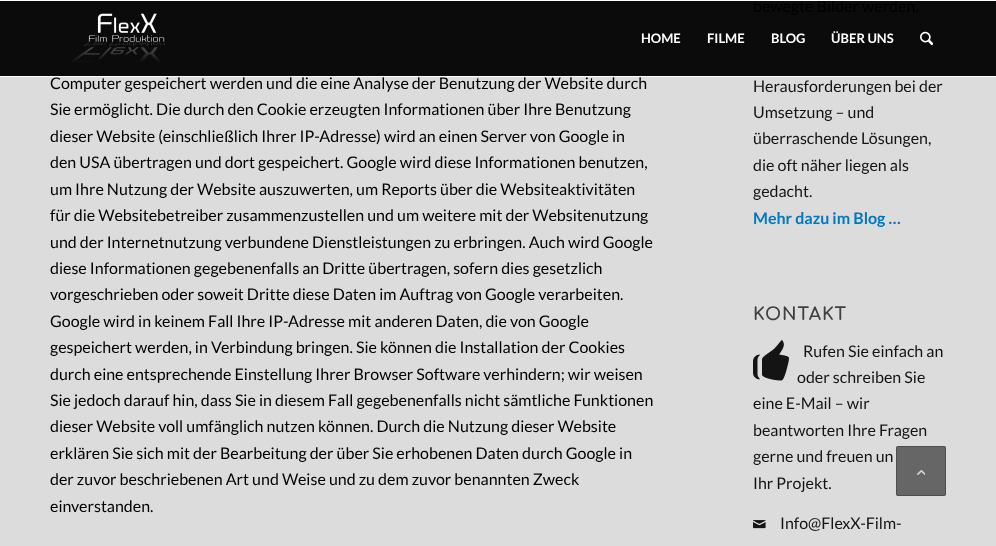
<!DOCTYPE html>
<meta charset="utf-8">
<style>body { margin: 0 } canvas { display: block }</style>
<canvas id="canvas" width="996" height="546"></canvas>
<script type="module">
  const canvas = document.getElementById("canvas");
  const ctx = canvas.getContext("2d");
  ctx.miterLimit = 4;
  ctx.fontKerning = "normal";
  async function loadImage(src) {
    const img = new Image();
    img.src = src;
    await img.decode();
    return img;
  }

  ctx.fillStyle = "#dcdcdc";
  ctx.fillRect(0, 0, 996, 546);
  ctx.fillStyle = "#0b0b0b";
  ctx.fillRect(0, 1, 996, 75);
  ctx.font = "16px Lato";
  ctx.fillStyle = "#000000";
  ctx.fillText("Computer gespeichert werden und die eine Analyse der Benutzung der Website durch", 50, 89);
  ctx.fillText("Sie ermöglicht. Die durch den Cookie erzeugten Informationen über Ihre Benutzung", 50, 115);
  ctx.fillText("dieser Website (einschließlich Ihrer IP-Adresse) wird an einen Server von Google in", 50, 142);
  ctx.fillText("den USA übertragen und dort gespeichert. Google wird diese Informationen benutzen,", 50, 168);
  ctx.fillText("um Ihre Nutzung der Website auszuwerten, um Reports über die Websiteaktivitäten", 50, 195);
  ctx.fillText("für die Websitebetreiber zusammenzustellen und um weitere mit der Websitenutzung", 50, 221);
  ctx.fillText("und der Internetnutzung verbundene Dienstleistungen zu erbringen. Auch wird Google", 50, 248);
  ctx.fillText("diese Informationen gegebenenfalls an Dritte übertragen, sofern dies gesetzlich", 50, 274);
  ctx.fillText("vorgeschrieben oder soweit Dritte diese Daten im Auftrag von Google verarbeiten.", 50, 300);
  ctx.fillText("Google wird in keinem Fall Ihre IP-Adresse mit anderen Daten, die von Google", 50, 327);
  ctx.fillText("gespeichert werden, in Verbindung bringen. Sie können die Installation der Cookies", 50, 353);
  ctx.fillText("durch eine entsprechende Einstellung Ihrer Browser Software verhindern; wir weisen", 50, 380);
  ctx.fillText("Sie jedoch darauf hin, dass Sie in diesem Fall gegebenenfalls nicht sämtliche Funktionen", 50, 406);
  ctx.fillText("dieser Website voll umfänglich nutzen können. Durch die Nutzung dieser Website", 50, 432);
  ctx.fillText("erklären Sie sich mit der Bearbeitung der über Sie erhobenen Daten durch Google in", 50, 459);
  ctx.fillText("der zuvor beschriebenen Art und Weise und zu dem zuvor benannten Zweck", 50, 485);
  ctx.fillText("einverstanden.", 50, 512);
  ctx.fillText("bewegte Bilder werden.", 753, 12);
  ctx.fillStyle = "#141414";
  ctx.fillText("Herausforderungen bei der", 753, 92);
  ctx.fillText("Umsetzung – und", 753, 118);
  ctx.fillText("überraschende Lösungen,", 753, 144);
  ctx.fillText("die oft näher liegen als", 753, 171);
  ctx.fillText("gedacht.", 753, 197);
  ctx.font = "bold 16px Lato";
  ctx.fillStyle = "#0078bd";
  ctx.fillText("Mehr dazu im Blog …", 753, 224);
  ctx.letterSpacing = "1px";
  ctx.font = "bold 17.5px Comfortaa";
  ctx.fillStyle = "#404040";
  ctx.fillText("KONTAKT", 753, 320);
  ctx.drawImage(await loadImage("img1.png"), 753, 340, 36, 41);
  ctx.letterSpacing = "0px";
  ctx.font = "16px Lato";
  ctx.fillStyle = "#141414";
  ctx.fillText("Rufen Sie einfach an", 803, 357);
  ctx.fillText("oder schreiben Sie", 797, 383);
  ctx.fillText("eine E-Mail – wir", 753, 409);
  ctx.fillText("beantworten Ihre Fragen", 753, 436);
  ctx.fillText("gerne und freuen un", 753, 462);
  ctx.fillText("Ihr Projekt.", 753, 489);
  ctx.drawImage(await loadImage("img2.png"), 753, 520, 13, 9);
  ctx.fillText("Info@FlexX-Film-", 780, 529);
  ctx.fillStyle = "#ffffff";
  ctx.fillRect(0, 0, 996, 1);
  ctx.fillRect(0, 76, 996, 1);
  ctx.drawImage(await loadImage("img3.png"), 72, 13, 93, 49);
  ctx.font = "bold 13px Lato";
  ctx.fillText("HOME", 641, 43);
  ctx.fillText("FILME", 707, 43);
  ctx.fillText("BLOG", 771, 43);
  ctx.fillText("ÜBER UNS", 831, 43);
  ctx.drawImage(await loadImage("img4.png"), 920, 31, 13, 15);
  ctx.fillStyle = "rgba(51, 51, 51, 0.7)";
  ctx.beginPath();
  ctx.roundRect(896, 446, 50, 50, 2);
  ctx.fill();
  ctx.beginPath();
  ctx.roundRect(896.5, 446.5, 49, 49, 1.5);
  ctx.strokeStyle = "rgba(68, 68, 68, 0.7)";
  ctx.stroke();
  ctx.drawImage(await loadImage("img5.png"), 917, 470, 8, 5);
</script>
